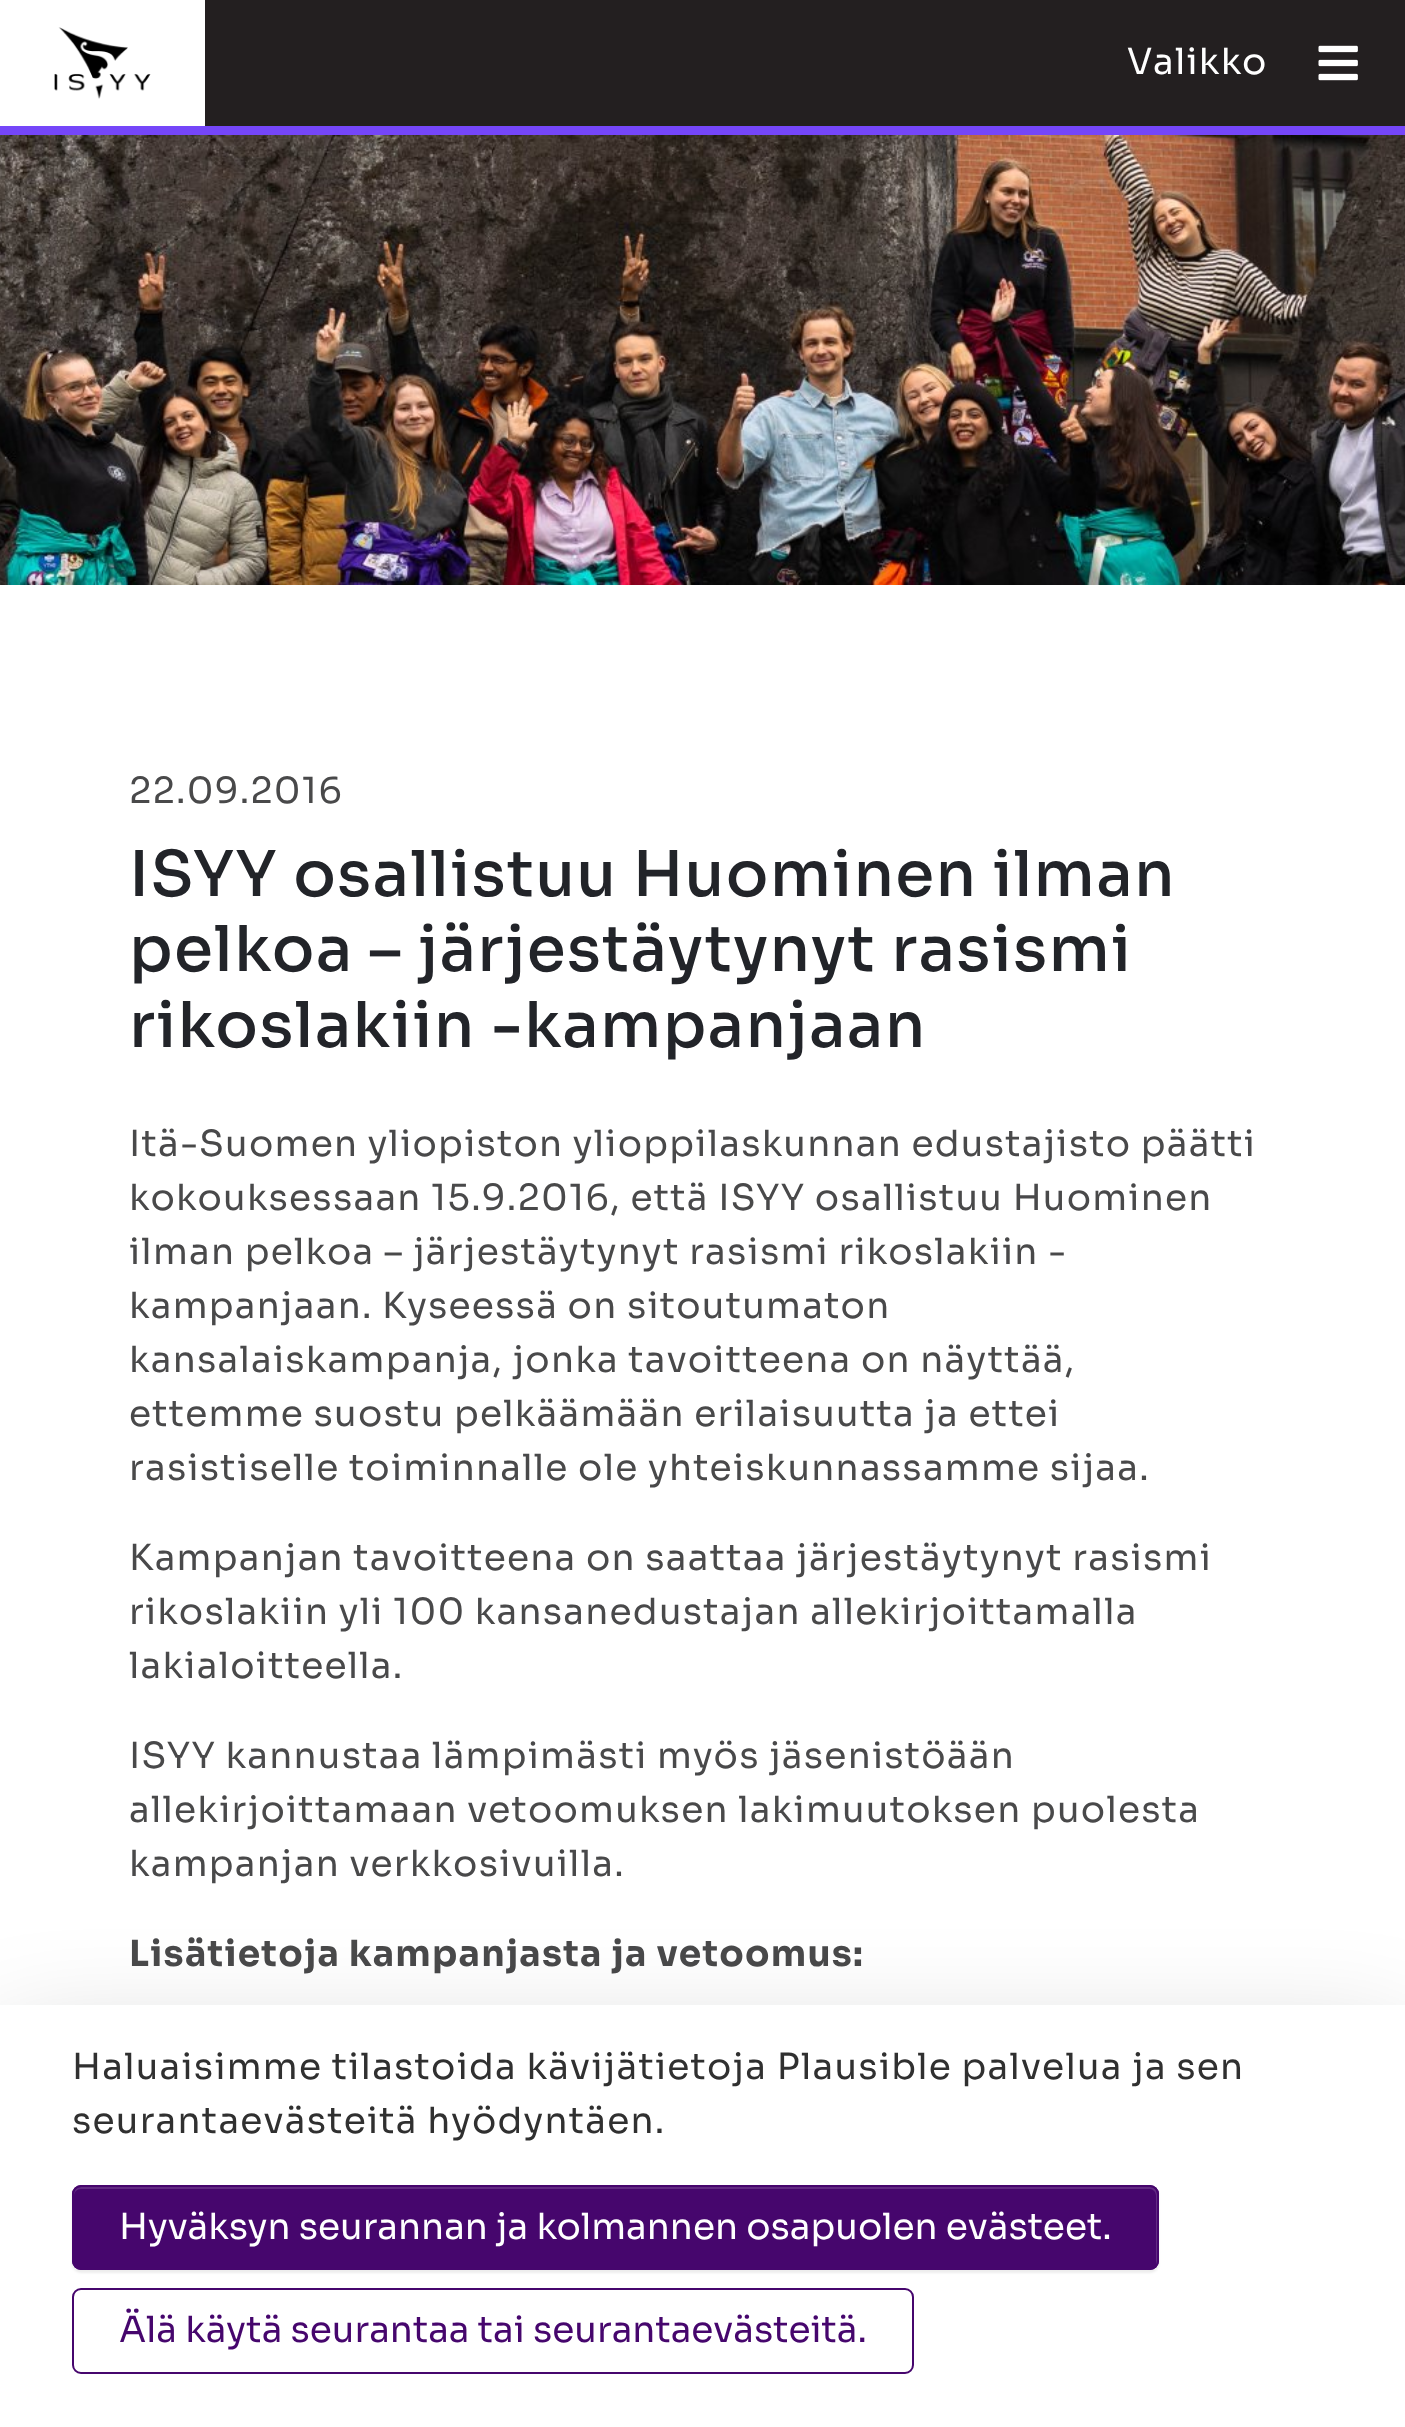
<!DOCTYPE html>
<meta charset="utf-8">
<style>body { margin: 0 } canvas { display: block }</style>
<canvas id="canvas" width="1405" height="2427"></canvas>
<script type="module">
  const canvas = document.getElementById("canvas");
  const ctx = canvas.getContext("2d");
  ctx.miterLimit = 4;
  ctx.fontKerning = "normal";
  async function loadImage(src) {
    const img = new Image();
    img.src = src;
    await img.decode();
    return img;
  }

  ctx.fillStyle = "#ffffff";
  ctx.fillRect(0, 0, 1405, 2427);
  ctx.fillStyle = "#7546f9";
  ctx.fillRect(0, 126, 1405, 9);
  ctx.drawImage(await loadImage("img1.png"), 54, 27, 97, 72);
  ctx.fillStyle = "#231f20";
  ctx.fillRect(205, 0, 1200, 126);
  ctx.letterSpacing = "1.25px";
  ctx.font = "36px Sora";
  ctx.fillStyle = "#ffffff";
  ctx.fillText("Valikko", 1127, 74);
  ctx.drawImage(await loadImage("img2.png"), 1318, 45, 40, 36);
  ctx.drawImage(await loadImage("img3.png"), 0, 135, 1405, 450);
  ctx.fillStyle = "#49494a";
  ctx.fillText("22.09.2016", 129, 803);
  ctx.font = "500 63px Sora";
  ctx.fillStyle = "#222429";
  ctx.fillText("ISYY osallistuu Huominen ilman", 129, 896);
  ctx.fillText("pelkoa – järjestäytynyt rasismi", 129, 971);
  ctx.fillText("rikoslakiin -kampanjaan", 129, 1047);
  ctx.font = "36px Sora";
  ctx.fillStyle = "#49494a";
  ctx.fillText("Itä-Suomen yliopiston ylioppilaskunnan edustajisto päätti", 129, 1156);
  ctx.fillText("kokouksessaan 15.9.2016, että ISYY osallistuu Huominen", 129, 1210);
  ctx.fillText("ilman pelkoa – järjestäytynyt rasismi rikoslakiin -", 129, 1264);
  ctx.fillText("kampanjaan. Kyseessä on sitoutumaton", 129, 1318);
  ctx.fillText("kansalaiskampanja, jonka tavoitteena on näyttää,", 129, 1372);
  ctx.fillText("ettemme suostu pelkäämään erilaisuutta ja ettei", 129, 1426);
  ctx.fillText("rasistiselle toiminnalle ole yhteiskunnassamme sijaa.", 129, 1480);
  ctx.fillText("Kampanjan tavoitteena on saattaa järjestäytynyt rasismi", 129, 1570);
  ctx.fillText("rikoslakiin yli 100 kansanedustajan allekirjoittamalla", 129, 1624);
  ctx.fillText("lakialoitteella.", 129, 1678);
  ctx.fillText("ISYY kannustaa lämpimästi myös jäsenistöään", 129, 1768);
  ctx.fillText("allekirjoittamaan vetoomuksen lakimuutoksen puolesta", 129, 1822);
  ctx.fillText("kampanjan verkkosivuilla.", 129, 1876);
  ctx.font = "bold 36px Sora";
  ctx.fillText("Lisätietoja kampanjasta ja vetoomus:", 129, 1966);
  ctx.fillStyle = "rgba(0, 0, 0, 0.18)";
  ctx.filter = "blur(54px)";
  ctx.beginPath();
  ctx.rect(0, 2041, 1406, 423);
  ctx.fill();
  ctx.filter = "none";
  ctx.fillStyle = "#ffffff";
  ctx.fillRect(0, 2005, 1405, 422);
  ctx.font = "36px Sora";
  ctx.fillStyle = "#303030";
  ctx.fillText("Haluaisimme tilastoida kävijätietoja Plausible palvelua ja sen", 72, 2079);
  ctx.fillText("seurantaevästeitä hyödyntäen.", 72, 2133);
  ctx.fillStyle = "rgba(0, 0, 0, 0.07)";
  ctx.filter = "blur(1px)";
  ctx.beginPath();
  ctx.roundRect(72, 2187, 1087, 86, 9);
  ctx.fill();
  ctx.filter = "none";
  ctx.fillStyle = "#46066d";
  ctx.beginPath();
  ctx.roundRect(72, 2185, 1087, 85, 9);
  ctx.fill();
  ctx.fillStyle = "#622b83";
  ctx.beginPath();
  ctx.moveTo(81, 2189);
  ctx.lineTo(1150, 2189);
  ctx.bezierCurveTo(1153, 2189, 1156, 2192, 1156, 2196);
  ctx.lineTo(1156, 2265);
  ctx.bezierCurveTo(1157, 2264, 1157, 2262, 1157, 2261);
  ctx.lineTo(1157, 2194);
  ctx.bezierCurveTo(1157, 2190, 1154, 2187, 1150, 2187);
  ctx.lineTo(81, 2187);
  ctx.bezierCurveTo(77, 2187, 74, 2190, 74, 2194);
  ctx.lineTo(74, 2196);
  ctx.bezierCurveTo(74, 2192, 77, 2189, 81, 2189);
  ctx.closePath();
  ctx.fill();
  ctx.beginPath();
  ctx.roundRect(73, 2186, 1085, 83, 8);
  ctx.strokeStyle = "#46066d";
  ctx.lineWidth = 2;
  ctx.stroke();
  ctx.letterSpacing = "0px";
  ctx.fillStyle = "#ffffff";
  ctx.fillText("Hyväksyn seurannan ja kolmannen osapuolen evästeet.", 119, 2239);
  ctx.beginPath();
  ctx.roundRect(73, 2289, 840, 84, 8);
  ctx.stroke();
  ctx.fillStyle = "#46066d";
  ctx.fillText("Älä käytä seurantaa tai seurantaevästeitä.", 119, 2342);
</script>
